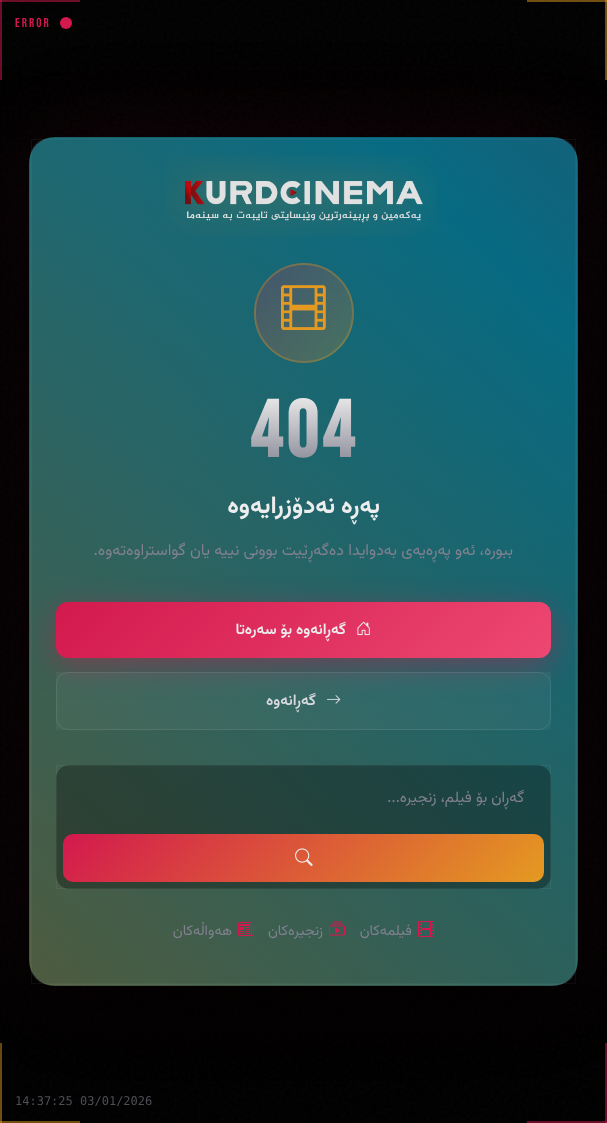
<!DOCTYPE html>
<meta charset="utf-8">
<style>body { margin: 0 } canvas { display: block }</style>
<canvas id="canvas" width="607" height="1123"></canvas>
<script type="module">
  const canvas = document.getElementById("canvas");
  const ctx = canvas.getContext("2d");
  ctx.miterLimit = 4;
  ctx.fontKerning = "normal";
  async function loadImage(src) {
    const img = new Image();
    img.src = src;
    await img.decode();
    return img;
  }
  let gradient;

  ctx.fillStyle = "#000000";
  ctx.fillRect(0, 0, 607, 1123);
  ctx.drawImage(await loadImage("img1.png"), 0, 0, 607, 1123);
  ctx.fillStyle = "rgba(228, 154, 33, 0.5)";
  ctx.fillRect(527, 0, 80, 2);
  ctx.fillRect(605, 0, 2, 80);
  ctx.fillStyle = "rgba(211, 25, 78, 0.5)";
  ctx.fillRect(0, 0, 80, 2);
  ctx.fillRect(0, 0, 2, 80);
  ctx.fillRect(605, 1043, 2, 80);
  ctx.fillRect(527, 1121, 80, 2);
  ctx.fillStyle = "rgba(228, 154, 33, 0.5)";
  ctx.fillRect(0, 1121, 80, 2);
  ctx.fillRect(0, 1043, 2, 80);
  ctx.save();
  ctx.beginPath();
  ctx.moveTo(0, 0);
  ctx.lineTo(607, 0);
  ctx.lineTo(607, 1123);
  ctx.lineTo(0, 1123);
  ctx.closePath();
  ctx.moveTo(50, 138);
  ctx.lineTo(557, 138);
  ctx.bezierCurveTo(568, 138, 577, 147, 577, 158);
  ctx.lineTo(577, 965);
  ctx.bezierCurveTo(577, 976, 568, 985, 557, 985);
  ctx.lineTo(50, 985);
  ctx.bezierCurveTo(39, 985, 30, 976, 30, 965);
  ctx.lineTo(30, 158);
  ctx.bezierCurveTo(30, 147, 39, 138, 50, 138);
  ctx.closePath();
  ctx.clip("evenodd");
  ctx.fillStyle = "rgba(211, 25, 78, 0.1)";
  ctx.filter = "blur(50px)";
  ctx.beginPath();
  ctx.roundRect(30, 138, 547, 847, 20);
  ctx.fill();
  ctx.filter = "none";
  ctx.restore();
  ctx.fillStyle = "#d3194e";
  ctx.beginPath();
  ctx.arc(66, 23, 6, 0, Math.PI * 2);
  ctx.fill();
  ctx.letterSpacing = "2px";
  ctx.font = "13px Bebas Neue";
  ctx.fillText("ERROR", 15, 27);
  ctx.save();
  ctx.beginPath();
  ctx.moveTo(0, 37);
  ctx.lineTo(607, 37);
  ctx.lineTo(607, 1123);
  ctx.lineTo(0, 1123);
  ctx.closePath();
  ctx.moveTo(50, 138);
  ctx.lineTo(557, 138);
  ctx.bezierCurveTo(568, 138, 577, 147, 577, 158);
  ctx.lineTo(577, 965);
  ctx.bezierCurveTo(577, 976, 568, 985, 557, 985);
  ctx.lineTo(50, 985);
  ctx.bezierCurveTo(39, 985, 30, 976, 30, 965);
  ctx.lineTo(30, 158);
  ctx.bezierCurveTo(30, 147, 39, 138, 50, 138);
  ctx.closePath();
  ctx.clip("evenodd");
  ctx.fillStyle = "rgba(0, 0, 0, 0.8)";
  ctx.filter = "blur(50px)";
  ctx.beginPath();
  ctx.roundRect(30, 188, 547, 847, 20);
  ctx.fill();
  ctx.filter = "none";
  ctx.restore();
  ctx.save();
  ctx.beginPath();
  ctx.roundRect(30, 138, 547, 847, 20);
  ctx.clip();
  gradient = ctx.createLinearGradient(15, -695, 592, 128);
  gradient.addColorStop(0, "rgba(19, 19, 28, 0.95)");
  gradient.addColorStop(1, "rgba(9, 9, 14, 0.98)");
  ctx.fillStyle = gradient;
  ctx.fillRect(44, 138, 519, 1);
  gradient = ctx.createLinearGradient(-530, 150, 47, 973);
  gradient.addColorStop(0, "rgba(19, 19, 28, 0.95)");
  gradient.addColorStop(1, "rgba(9, 9, 14, 0.98)");
  ctx.fillStyle = gradient;
  ctx.fillRect(30, 152, 1, 819);
  gradient = ctx.createLinearGradient(15, 150, 592, 973);
  gradient.addColorStop(0, "rgba(19, 19, 28, 0.95)");
  gradient.addColorStop(1, "rgba(9, 9, 14, 0.98)");
  ctx.fillStyle = gradient;
  ctx.fillRect(31, 139, 545, 845);
  gradient = ctx.createLinearGradient(560, 150, 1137, 973);
  gradient.addColorStop(0, "rgba(19, 19, 28, 0.95)");
  gradient.addColorStop(1, "rgba(9, 9, 14, 0.98)");
  ctx.fillStyle = gradient;
  ctx.fillRect(576, 152, 1, 819);
  gradient = ctx.createLinearGradient(15, 995, 592, 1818);
  gradient.addColorStop(0, "rgba(19, 19, 28, 0.95)");
  gradient.addColorStop(1, "rgba(9, 9, 14, 0.98)");
  ctx.fillStyle = gradient;
  ctx.fillRect(44, 984, 519, 1);
  ctx.restore();
  ctx.strokeStyle = "rgba(237, 237, 237, 0.05)";
  ctx.strokeRect(31.5, 139.5, 544, 844);
  ctx.beginPath();
  ctx.roundRect(30.5, 138.5, 546, 846, 19.5);
  ctx.strokeStyle = "rgba(237, 237, 237, 0.08)";
  ctx.stroke();
  gradient = ctx.createLinearGradient(-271, 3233, 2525, 437);
  gradient.addColorStop(0, "rgba(211, 25, 78, 0.5)");
  gradient.addColorStop(0.33, "rgba(228, 154, 33, 0.5)");
  gradient.addColorStop(0.67, "rgba(0, 197, 237, 0.5)");
  gradient.addColorStop(1, "rgba(211, 25, 78, 0.5)");
  ctx.fillStyle = gradient;
  ctx.beginPath();
  ctx.roundRect(29, 137, 549, 849, 26);
  ctx.fill();
  ctx.drawImage(await loadImage("img2.png"), 165, 155, 272, 82);
  gradient = ctx.createLinearGradient(254, 263, 354, 363);
  gradient.addColorStop(0, "rgba(211, 25, 78, 0.15)");
  gradient.addColorStop(1, "rgba(228, 154, 33, 0.15)");
  ctx.fillStyle = gradient;
  ctx.beginPath();
  ctx.arc(304, 313, 50, 0, Math.PI * 2);
  ctx.fill();
  ctx.save();
  ctx.beginPath();
  ctx.roundRect(254, 263, 100, 100, 50);
  ctx.clip();
  gradient = ctx.createLinearGradient(256, 169, 352, 265);
  gradient.addColorStop(0, "rgba(211, 25, 78, 0.1)");
  gradient.addColorStop(1, "rgba(228, 154, 33, 0.1)");
  ctx.fillStyle = gradient;
  ctx.fillRect(291, 263, 26, 2);
  gradient = ctx.createLinearGradient(160, 265, 256, 361);
  gradient.addColorStop(0, "rgba(211, 25, 78, 0.1)");
  gradient.addColorStop(1, "rgba(228, 154, 33, 0.1)");
  ctx.fillStyle = gradient;
  ctx.fillRect(254, 300, 2, 26);
  gradient = ctx.createLinearGradient(256, 265, 352, 361);
  gradient.addColorStop(0, "rgba(211, 25, 78, 0.1)");
  gradient.addColorStop(1, "rgba(228, 154, 33, 0.1)");
  ctx.fillStyle = gradient;
  ctx.fillRect(256, 265, 96, 96);
  gradient = ctx.createLinearGradient(352, 265, 448, 361);
  gradient.addColorStop(0, "rgba(211, 25, 78, 0.1)");
  gradient.addColorStop(1, "rgba(228, 154, 33, 0.1)");
  ctx.fillStyle = gradient;
  ctx.fillRect(352, 300, 2, 26);
  gradient = ctx.createLinearGradient(256, 361, 352, 457);
  gradient.addColorStop(0, "rgba(211, 25, 78, 0.1)");
  gradient.addColorStop(1, "rgba(228, 154, 33, 0.1)");
  ctx.fillStyle = gradient;
  ctx.fillRect(291, 361, 26, 2);
  ctx.restore();
  ctx.beginPath();
  ctx.arc(304, 313, 49, 0, Math.PI * 2);
  ctx.strokeStyle = "rgba(228, 154, 33, 0.3)";
  ctx.lineWidth = 2;
  ctx.stroke();
  ctx.drawImage(await loadImage("img3.png"), 281, 285, 45, 45);
  ctx.letterSpacing = "4px";
  ctx.font = "bold 80px Bebas Neue";
  gradient = ctx.createLinearGradient(304, 393, 304, 473);
  gradient.addColorStop(0, "#ededed");
  gradient.addColorStop(1, "#80808f");
  ctx.fillStyle = gradient;
  ctx.fillText("404", 250, 457);
  ctx.letterSpacing = "0px";
  ctx.direction = "rtl";
  ctx.font = "bold 24px Vazirmatn";
  ctx.fillStyle = "#ededed";
  ctx.fillText("پەڕە نەدۆزرایەوە", 380, 513);
  ctx.font = "16px Vazirmatn";
  ctx.fillStyle = "#80808f";
  ctx.fillText("ببورە، ئەو پەڕەیەی بەدوایدا دەگەڕێیت بوونی نییە یان گواستراوەتەوە.", 513, 555);
  ctx.fillStyle = "rgba(211, 25, 78, 0.4)";
  ctx.filter = "blur(15px)";
  ctx.beginPath();
  ctx.roundRect(56, 610, 495, 56, 12);
  ctx.fill();
  ctx.filter = "none";
  gradient = ctx.createLinearGradient(166, 492, 441, 768);
  gradient.addColorStop(0, "#d3194e");
  gradient.addColorStop(1, "#ed4871");
  ctx.fillStyle = gradient;
  ctx.beginPath();
  ctx.roundRect(56, 602, 495, 56, 12);
  ctx.fill();
  ctx.drawImage(await loadImage("img4.png"), 357, 621, 13, 15);
  ctx.font = "600 15.25px Vazirmatn";
  ctx.fillStyle = "#ededed";
  ctx.fillText("گەڕانەوە بۆ سەرەتا", 346, 634);
  ctx.fillStyle = "rgba(237, 237, 237, 0.05)";
  ctx.fillRect(56, 672, 495, 58);
  ctx.beginPath();
  ctx.roundRect(56.5, 672.5, 494, 57, 11.5);
  ctx.strokeStyle = "rgba(237, 237, 237, 0.1)";
  ctx.lineWidth = 1;
  ctx.stroke();
  ctx.drawImage(await loadImage("img5.png"), 327, 695, 14, 9);
  ctx.fillStyle = "#d8d8df";
  ctx.fillText("گەڕانەوە", 316, 705);
  ctx.fillStyle = "rgba(0, 0, 0, 0.3)";
  ctx.beginPath();
  ctx.roundRect(56, 765, 495, 124, 14);
  ctx.fill();
  ctx.strokeStyle = "rgba(237, 237, 237, 0.06)";
  ctx.strokeRect(56.5, 765.5, 494, 123);
  ctx.font = "15.25px Vazirmatn";
  ctx.fillStyle = "#80808f";
  ctx.fillText("گەڕان بۆ فیلم، زنجیرە...", 524, 802);
  gradient = ctx.createLinearGradient(171, 726, 436, 990);
  gradient.addColorStop(0, "#d3194e");
  gradient.addColorStop(1, "#e49a21");
  ctx.fillStyle = gradient;
  ctx.beginPath();
  ctx.roundRect(63, 834, 481, 48, 10);
  ctx.fill();
  ctx.drawImage(await loadImage("img6.png"), 295, 848, 18, 18);
  ctx.drawImage(await loadImage("img7.png"), 418, 921, 16, 16);
  ctx.font = "14.5px Vazirmatn";
  ctx.fillStyle = "#80808f";
  ctx.fillText("فیلمەکان", 412, 935);
  ctx.drawImage(await loadImage("img8.png"), 329, 921, 16, 15);
  ctx.fillText("زنجیرەکان", 323, 935);
  ctx.drawImage(await loadImage("img9.png"), 238, 922, 16, 14);
  ctx.fillText("هەواڵەکان", 232, 935);
  ctx.direction = "ltr";
  ctx.font = "12px DejaVu Sans Mono";
  ctx.fillStyle = "#4e4e56";
  ctx.fillText("14:37:25 03/01/2026", 15, 1105);
</script>
